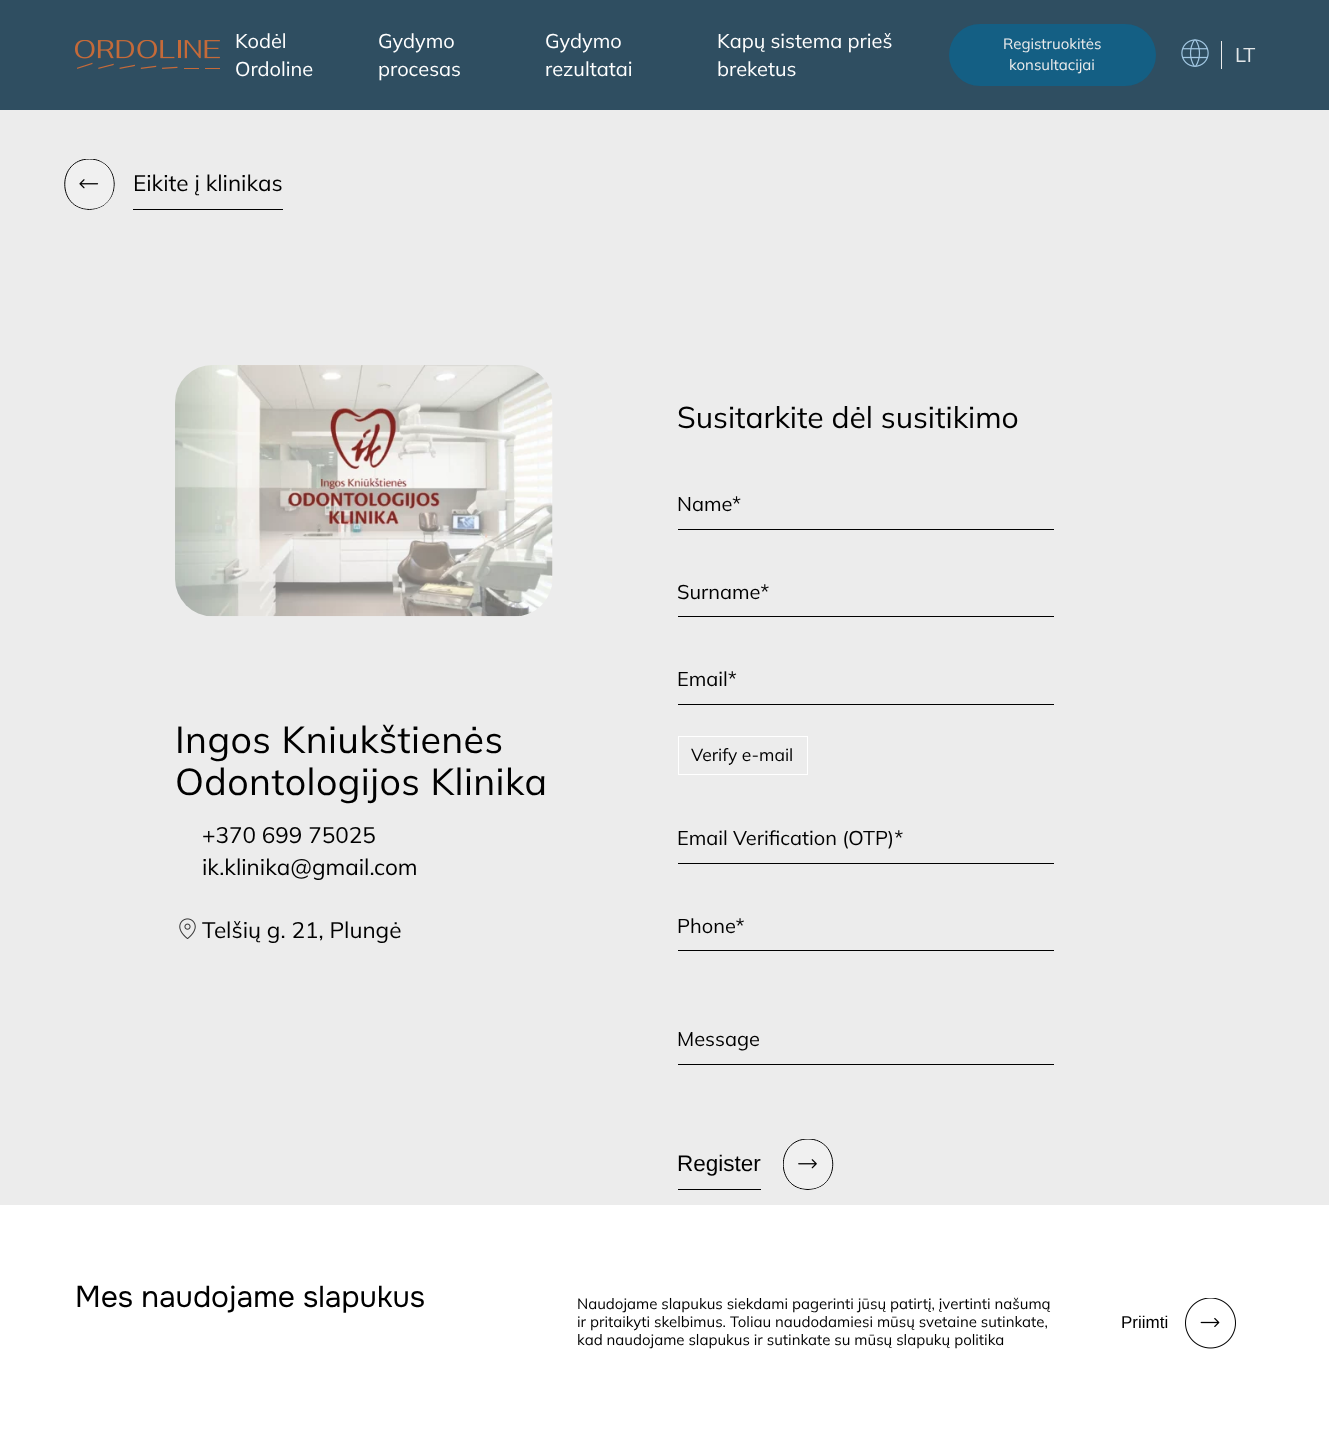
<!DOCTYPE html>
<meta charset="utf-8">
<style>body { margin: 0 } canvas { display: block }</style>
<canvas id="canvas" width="1329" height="1439"></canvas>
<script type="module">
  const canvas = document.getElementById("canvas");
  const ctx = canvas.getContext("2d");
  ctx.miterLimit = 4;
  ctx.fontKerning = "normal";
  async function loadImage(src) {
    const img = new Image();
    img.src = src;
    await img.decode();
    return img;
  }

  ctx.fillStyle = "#ececec";
  ctx.fillRect(0, 0, 1329, 1439);
  ctx.fillStyle = "#2f4e61";
  ctx.fillRect(0, 0, 1329, 110);
  ctx.drawImage(await loadImage("img1.png"), 75, 40, 145, 29);
  ctx.font = "20px Mulish";
  ctx.fillStyle = "#ffffff";
  ctx.fillText("Kodėl", 235, 48);
  ctx.fillText("Ordoline", 235, 76);
  ctx.fillText("Gydymo", 378, 48);
  ctx.fillText("procesas", 378, 76);
  ctx.fillText("Gydymo", 545, 48);
  ctx.fillText("rezultatai", 545, 76);
  ctx.fillText("Kapų sistema prieš", 717, 48);
  ctx.fillText("breketus", 717, 76);
  ctx.fillStyle = "#145f84";
  ctx.beginPath();
  ctx.roundRect(949, 24, 207, 62, 31);
  ctx.fill();
  ctx.font = "15px Mulish";
  ctx.fillStyle = "#ececec";
  ctx.fillText("Registruokitės", 1003, 49);
  ctx.fillText("konsultacijai", 1009, 70);
  ctx.drawImage(await loadImage("img2.png"), 1181, 39, 28, 28);
  ctx.fillRect(1221, 41, 1, 28);
  ctx.font = "20px Mulish";
  ctx.fillStyle = "#e2e6e8";
  ctx.fillText("LT", 1235, 62);
  ctx.fillStyle = "#f0f0f0";
  ctx.beginPath();
  ctx.arc(89, 184, 26, 0, Math.PI * 2);
  ctx.fill();
  ctx.save();
  ctx.beginPath();
  ctx.rect(64, 159, 51, 51);
  ctx.clip();
  ctx.beginPath();
  ctx.roundRect(63, 158, 52, 52, 26);
  ctx.clip();
  ctx.beginPath();
  ctx.moveTo(89.5, 159);
  ctx.bezierCurveTo(122.5, 159, 122.5, 209.5, 89.5, 209.5);
  ctx.bezierCurveTo(56.5, 209.5, 56.5, 159, 89.5, 159);
  ctx.strokeStyle = "#000000";
  ctx.stroke();
  ctx.restore();
  ctx.drawImage(await loadImage("img3.png"), 79, 179, 20, 10);
  ctx.font = "22.5px Mulish";
  ctx.fillStyle = "#000000";
  ctx.fillText("Eikite į klinikas", 133, 191);
  ctx.fillRect(133, 209, 150, 1);
  ctx.drawImage(await loadImage("img4.png"), 175, 365, 378, 252);
  ctx.letterSpacing = "0.4px";
  ctx.font = "37.5px Mulish";
  ctx.fillText("Ingos Kniukštienės", 175, 753);
  ctx.fillText("Odontologijos Klinika", 175, 795);
  ctx.letterSpacing = "0px";
  ctx.font = "22.5px Mulish";
  ctx.fillText("+370 699 75025", 202, 843);
  ctx.fillText("ik.klinika@gmail.com", 202, 875);
  ctx.drawImage(await loadImage("img5.png"), 179, 918, 17, 21);
  ctx.fillText("Telšių g. 21, Plungė", 202, 938);
  ctx.font = "30px Mulish";
  ctx.fillText("Susitarkite dėl susitikimo", 677, 428);
  ctx.font = "20px Mulish";
  ctx.fillText("Name*", 677, 511);
  ctx.fillRect(678, 529, 376, 1);
  ctx.fillText("Surname*", 677, 599);
  ctx.fillRect(678, 616, 376, 1);
  ctx.fillText("Email*", 677, 686);
  ctx.fillRect(678, 704, 376, 1);
  ctx.strokeStyle = "#ffffff";
  ctx.strokeRect(678.5, 736.5, 129, 38);
  ctx.font = "17.5px Mulish";
  ctx.fillText("Verify e-mail", 691, 761);
  ctx.font = "20px Mulish";
  ctx.fillText("Email Verification (OTP)*", 677, 845);
  ctx.fillRect(678, 863, 376, 1);
  ctx.fillText("Phone*", 677, 933);
  ctx.fillRect(678, 950, 376, 1);
  ctx.fillText("Message", 677, 1046);
  ctx.fillRect(678, 1064, 376, 1);
  ctx.font = "22.5px Liberation Sans";
  ctx.fillText("Register", 677, 1171);
  ctx.fillRect(678, 1189, 83, 1);
  ctx.fillStyle = "#f0f0f0";
  ctx.beginPath();
  ctx.roundRect(781, 1138, 53, 52, 26);
  ctx.fill();
  ctx.save();
  ctx.beginPath();
  ctx.rect(783, 1139, 51, 51);
  ctx.clip();
  ctx.beginPath();
  ctx.roundRect(781, 1138, 53, 52, 26);
  ctx.clip();
  ctx.beginPath();
  ctx.moveTo(808, 1139);
  ctx.bezierCurveTo(841, 1139, 841, 1189.5, 808, 1189.5);
  ctx.bezierCurveTo(775, 1189.5, 775, 1139, 808, 1139);
  ctx.strokeStyle = "#000000";
  ctx.stroke();
  ctx.restore();
  ctx.drawImage(await loadImage("img6.png"), 798, 1159, 19, 10);
  ctx.fillStyle = "#ffffff";
  ctx.fillRect(0, 1205, 1329, 234);
  ctx.font = "30px Onest";
  ctx.fillStyle = "#000000";
  ctx.fillText("Mes naudojame slapukus", 75, 1307);
  ctx.font = "15px Mulish";
  ctx.fillText("Naudojame slapukus siekdami pagerinti jūsų patirtį, įvertinti našumą", 577, 1309);
  ctx.fillText("ir pritaikyti skelbimus. Toliau naudodamiesi mūsų svetaine sutinkate,", 577, 1327);
  ctx.fillText("kad naudojame slapukus ir sutinkate su mūsų slapukų politika", 577, 1345);
  ctx.font = "17px Liberation Sans";
  ctx.fillText("Priimti", 1121, 1328);
  ctx.drawImage(await loadImage("img7.png"), 1185, 1298, 51, 51);
</script>
